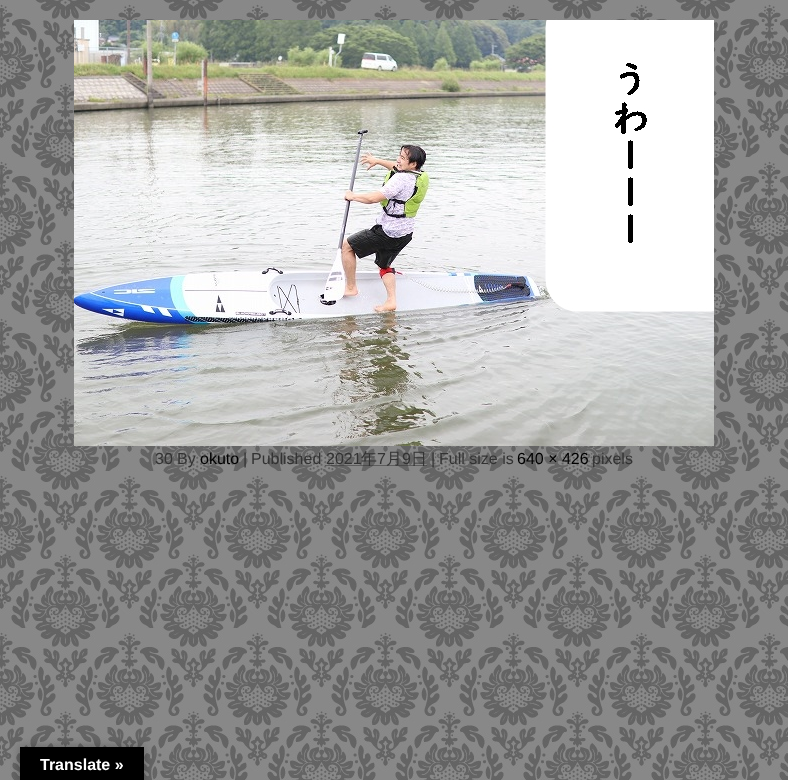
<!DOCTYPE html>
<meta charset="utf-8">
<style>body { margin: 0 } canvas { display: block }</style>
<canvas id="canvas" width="788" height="780"></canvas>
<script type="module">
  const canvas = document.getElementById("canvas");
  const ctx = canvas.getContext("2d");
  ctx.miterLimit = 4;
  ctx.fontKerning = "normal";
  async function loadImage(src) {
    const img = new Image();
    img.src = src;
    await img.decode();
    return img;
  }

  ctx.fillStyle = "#ffffff";
  ctx.fillRect(0, 0, 788, 780);
  ctx.drawImage(await loadImage("img1.png"), 0, 0, 788, 780);
  ctx.drawImage(await loadImage("img2.png"), 74, 20, 640, 426);
  ctx.font = "16px Liberation Sans";
  ctx.fillStyle = "#333333";
  ctx.fillText("30", 155, 464);
  ctx.fillText("By", 177, 464);
  ctx.fillStyle = "#000000";
  ctx.fillText("okuto", 200, 464);
  ctx.fillStyle = "#333333";
  ctx.fillText("|", 243, 464);
  ctx.fillText("Published", 251, 464);
  ctx.fillText("2021", 326, 464);
  ctx.beginPath();
  ctx.moveTo(325.5, 465.5);
  ctx.lineTo(427, 465.5);
  ctx.strokeStyle = "#333333";
  ctx.setLineDash([1, 1]);
  ctx.stroke();
  ctx.font = "500 16px WenQuanYi Zen Hei";
  ctx.fillText("年", 361, 464);
  ctx.font = "16px Liberation Sans";
  ctx.fillText("7", 377, 464);
  ctx.font = "500 16px WenQuanYi Zen Hei";
  ctx.fillText("月", 386, 464);
  ctx.font = "16px Liberation Sans";
  ctx.fillText("9", 402, 464);
  ctx.font = "500 16px WenQuanYi Zen Hei";
  ctx.fillText("日", 411, 464);
  ctx.font = "16px Liberation Sans";
  ctx.fillText("|", 431, 464);
  ctx.fillText("Full size is", 439, 464);
  ctx.fillStyle = "#000000";
  ctx.fillText("640 × 426", 517, 464);
  ctx.fillStyle = "#333333";
  ctx.fillText("pixels", 592, 464);
  ctx.fillStyle = "rgba(0, 0, 0, 0.3)";
  ctx.filter = "blur(4.5px)";
  ctx.beginPath();
  ctx.rect(20, 747, 124, 33);
  ctx.fill();
  ctx.filter = "none";
  ctx.fillStyle = "#000000";
  ctx.fillRect(20, 747, 124, 33);
  ctx.font = "bold 16px Liberation Sans";
  ctx.fillStyle = "#ffffff";
  ctx.fillText("Translate »", 40, 770);
</script>
